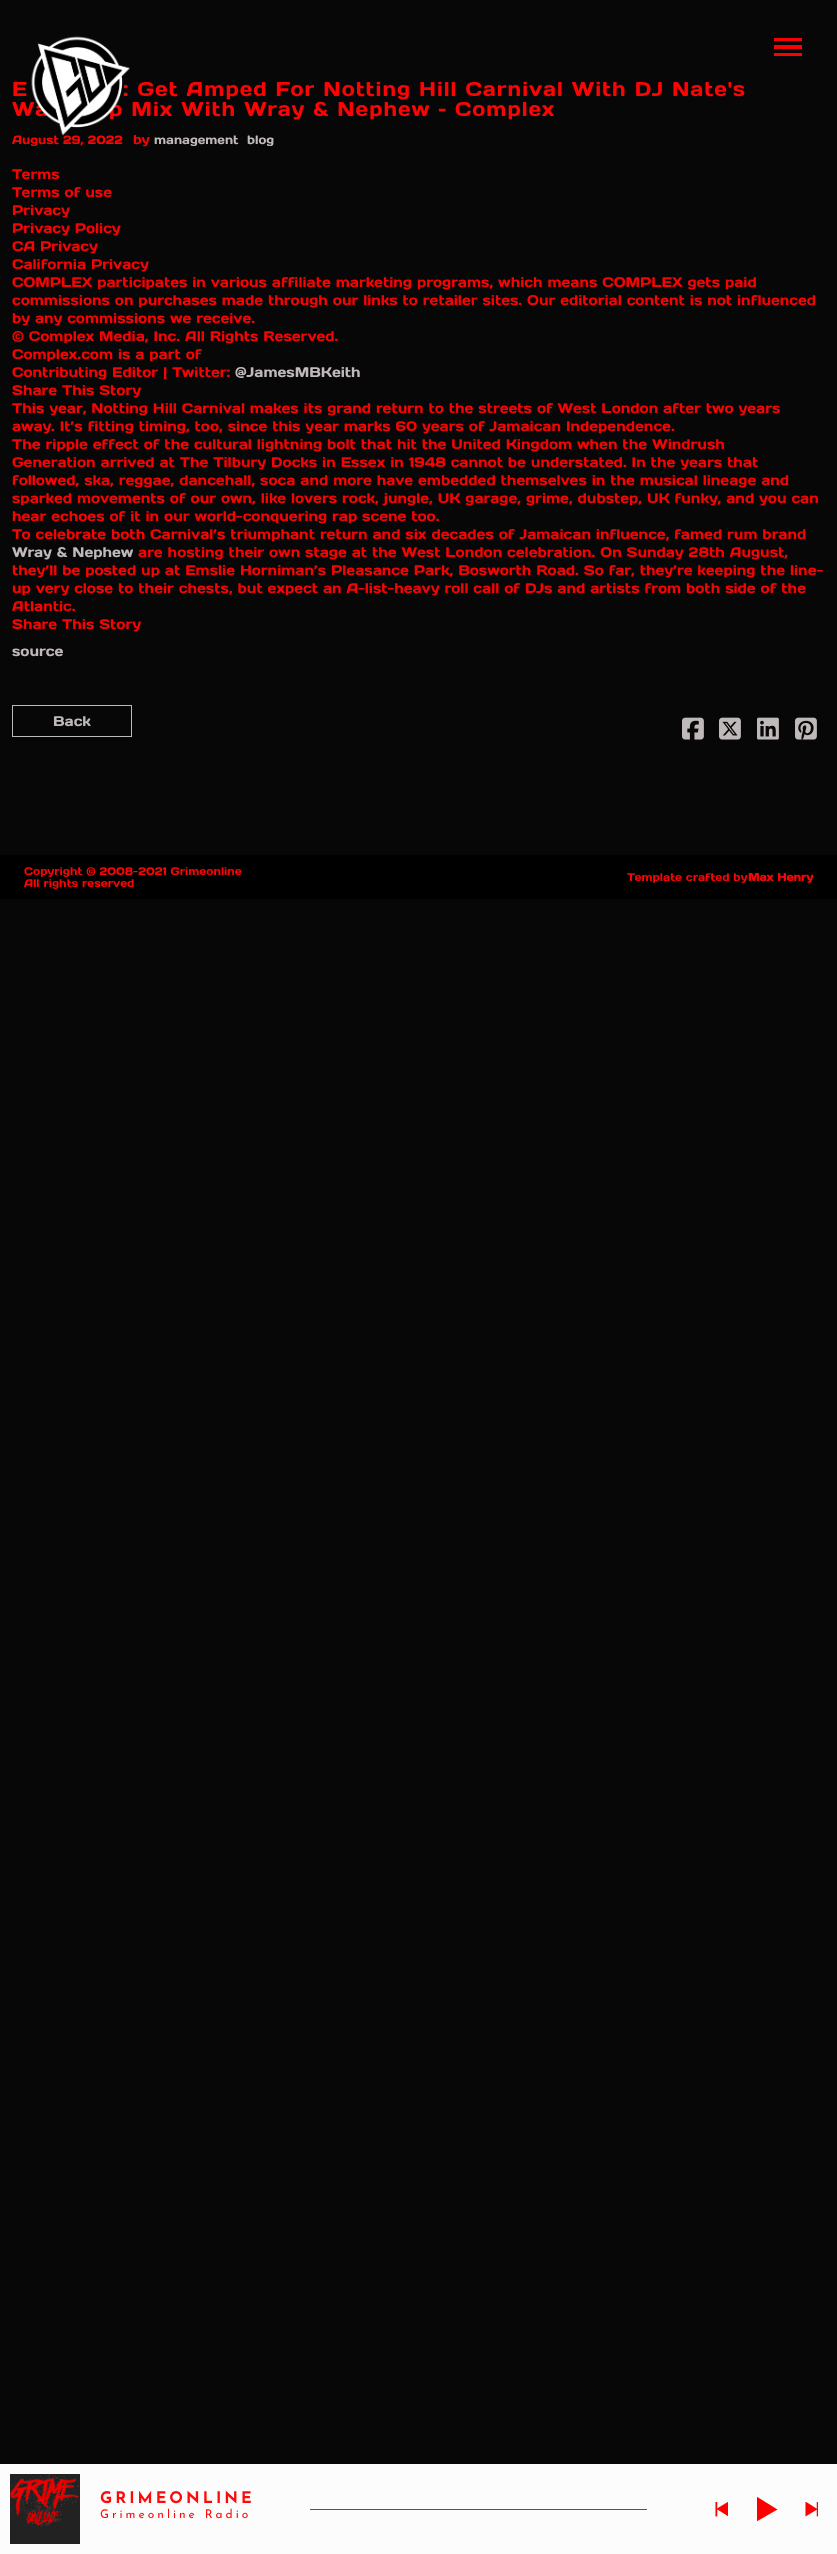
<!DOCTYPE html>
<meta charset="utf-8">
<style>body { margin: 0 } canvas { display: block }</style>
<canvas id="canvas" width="837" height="2554"></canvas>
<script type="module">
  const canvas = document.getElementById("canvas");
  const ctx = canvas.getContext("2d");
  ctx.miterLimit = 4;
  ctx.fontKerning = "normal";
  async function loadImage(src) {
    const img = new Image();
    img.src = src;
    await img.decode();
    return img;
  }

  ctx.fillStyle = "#080707";
  ctx.fillRect(0, 0, 837, 2554);
  ctx.letterSpacing = "1px";
  ctx.font = "20px Days One";
  ctx.fillStyle = "#fc0404";
  ctx.fillText(": Get Amped For Notting Hill Carnival With DJ Nate's", 123, 96);
  ctx.fillText("Wa", 12, 116);
  ctx.fillText("p Mix With Wray & Nephew – Complex", 109, 116);
  ctx.letterSpacing = "0px";
  ctx.font = "12px Days One";
  ctx.fillText("August 29, 2022", 12, 144);
  ctx.drawImage(await loadImage("img1.png"), 31, 36, 99, 100);
  ctx.fillStyle = "#f70303";
  ctx.fillRect(774, 38, 28, 3);
  ctx.fillRect(774, 45, 28, 4);
  ctx.fillRect(774, 53, 28, 3);
  ctx.letterSpacing = "1px";
  ctx.font = "20px Days One";
  ctx.fillStyle = "#fc0404";
  ctx.fillText("E", 12, 96);
  ctx.letterSpacing = "0px";
  ctx.font = "13px Days One";
  ctx.fillStyle = "#f60404";
  ctx.fillText("by", 133, 144);
  ctx.font = "12px Days One";
  ctx.fillStyle = "#c0b9b9";
  ctx.fillText("management", 154, 144);
  ctx.fillText("blog", 247, 144);
  ctx.font = "14px Days One";
  ctx.fillStyle = "#f60404";
  ctx.fillText("Terms", 12, 179);
  ctx.fillText("Terms of use", 12, 197);
  ctx.fillText("Privacy", 12, 215);
  ctx.fillText("Privacy Policy", 12, 233);
  ctx.fillText("CA Privacy", 12, 251);
  ctx.fillText("California Privacy", 12, 269);
  ctx.fillText("COMPLEX participates in various affiliate marketing programs, which means COMPLEX gets paid", 12, 287);
  ctx.fillText("commissions on purchases made through our links to retailer sites. Our editorial content is not influenced", 12, 305);
  ctx.fillText("by any commissions we receive.", 12, 323);
  ctx.fillText("© Complex Media, Inc. All Rights Reserved.", 12, 341);
  ctx.fillText("Complex.com is a part of", 12, 359);
  ctx.fillText("Contributing Editor | Twitter:", 12, 377);
  ctx.fillStyle = "#c0b9b9";
  ctx.fillText("@JamesMBKeith", 235, 377);
  ctx.fillStyle = "#f60404";
  ctx.fillText("Share This Story", 12, 395);
  ctx.fillText("This year, Notting Hill Carnival makes its grand return to the streets of West London after two years", 12, 413);
  ctx.fillText("away. It’s fitting timing, too, since this year marks 60 years of Jamaican Independence.", 12, 431);
  ctx.fillText("The ripple effect of the cultural lightning bolt that hit the United Kingdom when the Windrush", 12, 449);
  ctx.fillText("Generation arrived at The Tilbury Docks in Essex in 1948 cannot be understated. In the years that", 12, 467);
  ctx.fillText("followed, ska, reggae, dancehall, soca and more have embedded themselves in the musical lineage and", 12, 485);
  ctx.fillText("sparked movements of our own, like lovers rock, jungle, UK garage, grime, dubstep, UK funky, and you can", 12, 503);
  ctx.fillText("hear echoes of it in our world-conquering rap scene too.", 12, 521);
  ctx.fillText("To celebrate both Carnival’s triumphant return and six decades of Jamaican influence, famed rum brand", 12, 539);
  ctx.fillStyle = "#c0b9b9";
  ctx.fillText("Wray & Nephew", 12, 557);
  ctx.fillStyle = "#f60404";
  ctx.fillText("are hosting their own stage at the West London celebration. On Sunday 28th August,", 138, 557);
  ctx.fillText("they’ll be posted up at Emslie Horniman’s Pleasance Park, Bosworth Road. So far, they’re keeping the line-", 12, 575);
  ctx.fillText("up very close to their chests, but expect an A-list-heavy roll call of DJs and artists from both side of the", 12, 593);
  ctx.fillText("Atlantic.", 12, 611);
  ctx.fillText("Share This Story", 12, 629);
  ctx.fillStyle = "#c0b9b9";
  ctx.fillText("source", 12, 656);
  ctx.strokeStyle = "#c0b9b9";
  ctx.strokeRect(12.5, 705.5, 119, 31);
  ctx.fillText("Back", 53, 726);
  ctx.drawImage(await loadImage("img2.png"), 682, 717, 22, 23);
  ctx.drawImage(await loadImage("img3.png"), 719, 717, 22, 23);
  ctx.drawImage(await loadImage("img4.png"), 757, 717, 22, 23);
  ctx.drawImage(await loadImage("img5.png"), 795, 717, 22, 23);
  ctx.fillStyle = "#000000";
  ctx.fillRect(0, 855, 837, 44);
  ctx.font = "11px Days One";
  ctx.fillStyle = "#fc0404";
  ctx.fillText("Copyright © 2008-2021 Grimeonline", 24, 875);
  ctx.fillText("All rights reserved", 24, 887);
  ctx.fillText("Template crafted by", 627, 881);
  ctx.font = "bold 11px Days One";
  ctx.fillText("Max Henry", 748, 881);
  ctx.fillStyle = "#fcfcfc";
  ctx.fillRect(0, 2464, 837, 90);
  ctx.fillStyle = "#222222";
  ctx.fillRect(10, 2474, 70, 70);
  ctx.drawImage(await loadImage("img6.png"), 10, 2474, 70, 53);
  ctx.letterSpacing = "3px";
  ctx.font = "bold 16px Josefin Sans";
  ctx.fillStyle = "#ff0a0a";
  ctx.fillText("GRIMEONLINE", 100, 2503);
  ctx.font = "12px Josefin Sans";
  ctx.fillText("Grimeonline Radio", 100, 2518);
  ctx.fillStyle = "#f90c0c";
  ctx.fillRect(310, 2509, 337, 1);
  ctx.drawImage(await loadImage("img7.png"), 715, 2502, 13, 15);
  ctx.save();
  ctx.beginPath();
  ctx.rect(757, 2497, 21, 25);
  ctx.clip();
  ctx.fillStyle = "#ff0000";
  ctx.beginPath();
  ctx.moveTo(756.5, 2496.5);
  ctx.lineTo(777.5, 2509.5);
  ctx.lineTo(756.5, 2521.5);
  ctx.closePath();
  ctx.fill();
  ctx.restore();
  ctx.drawImage(await loadImage("img8.png"), 805, 2502, 13, 15);
</script>
